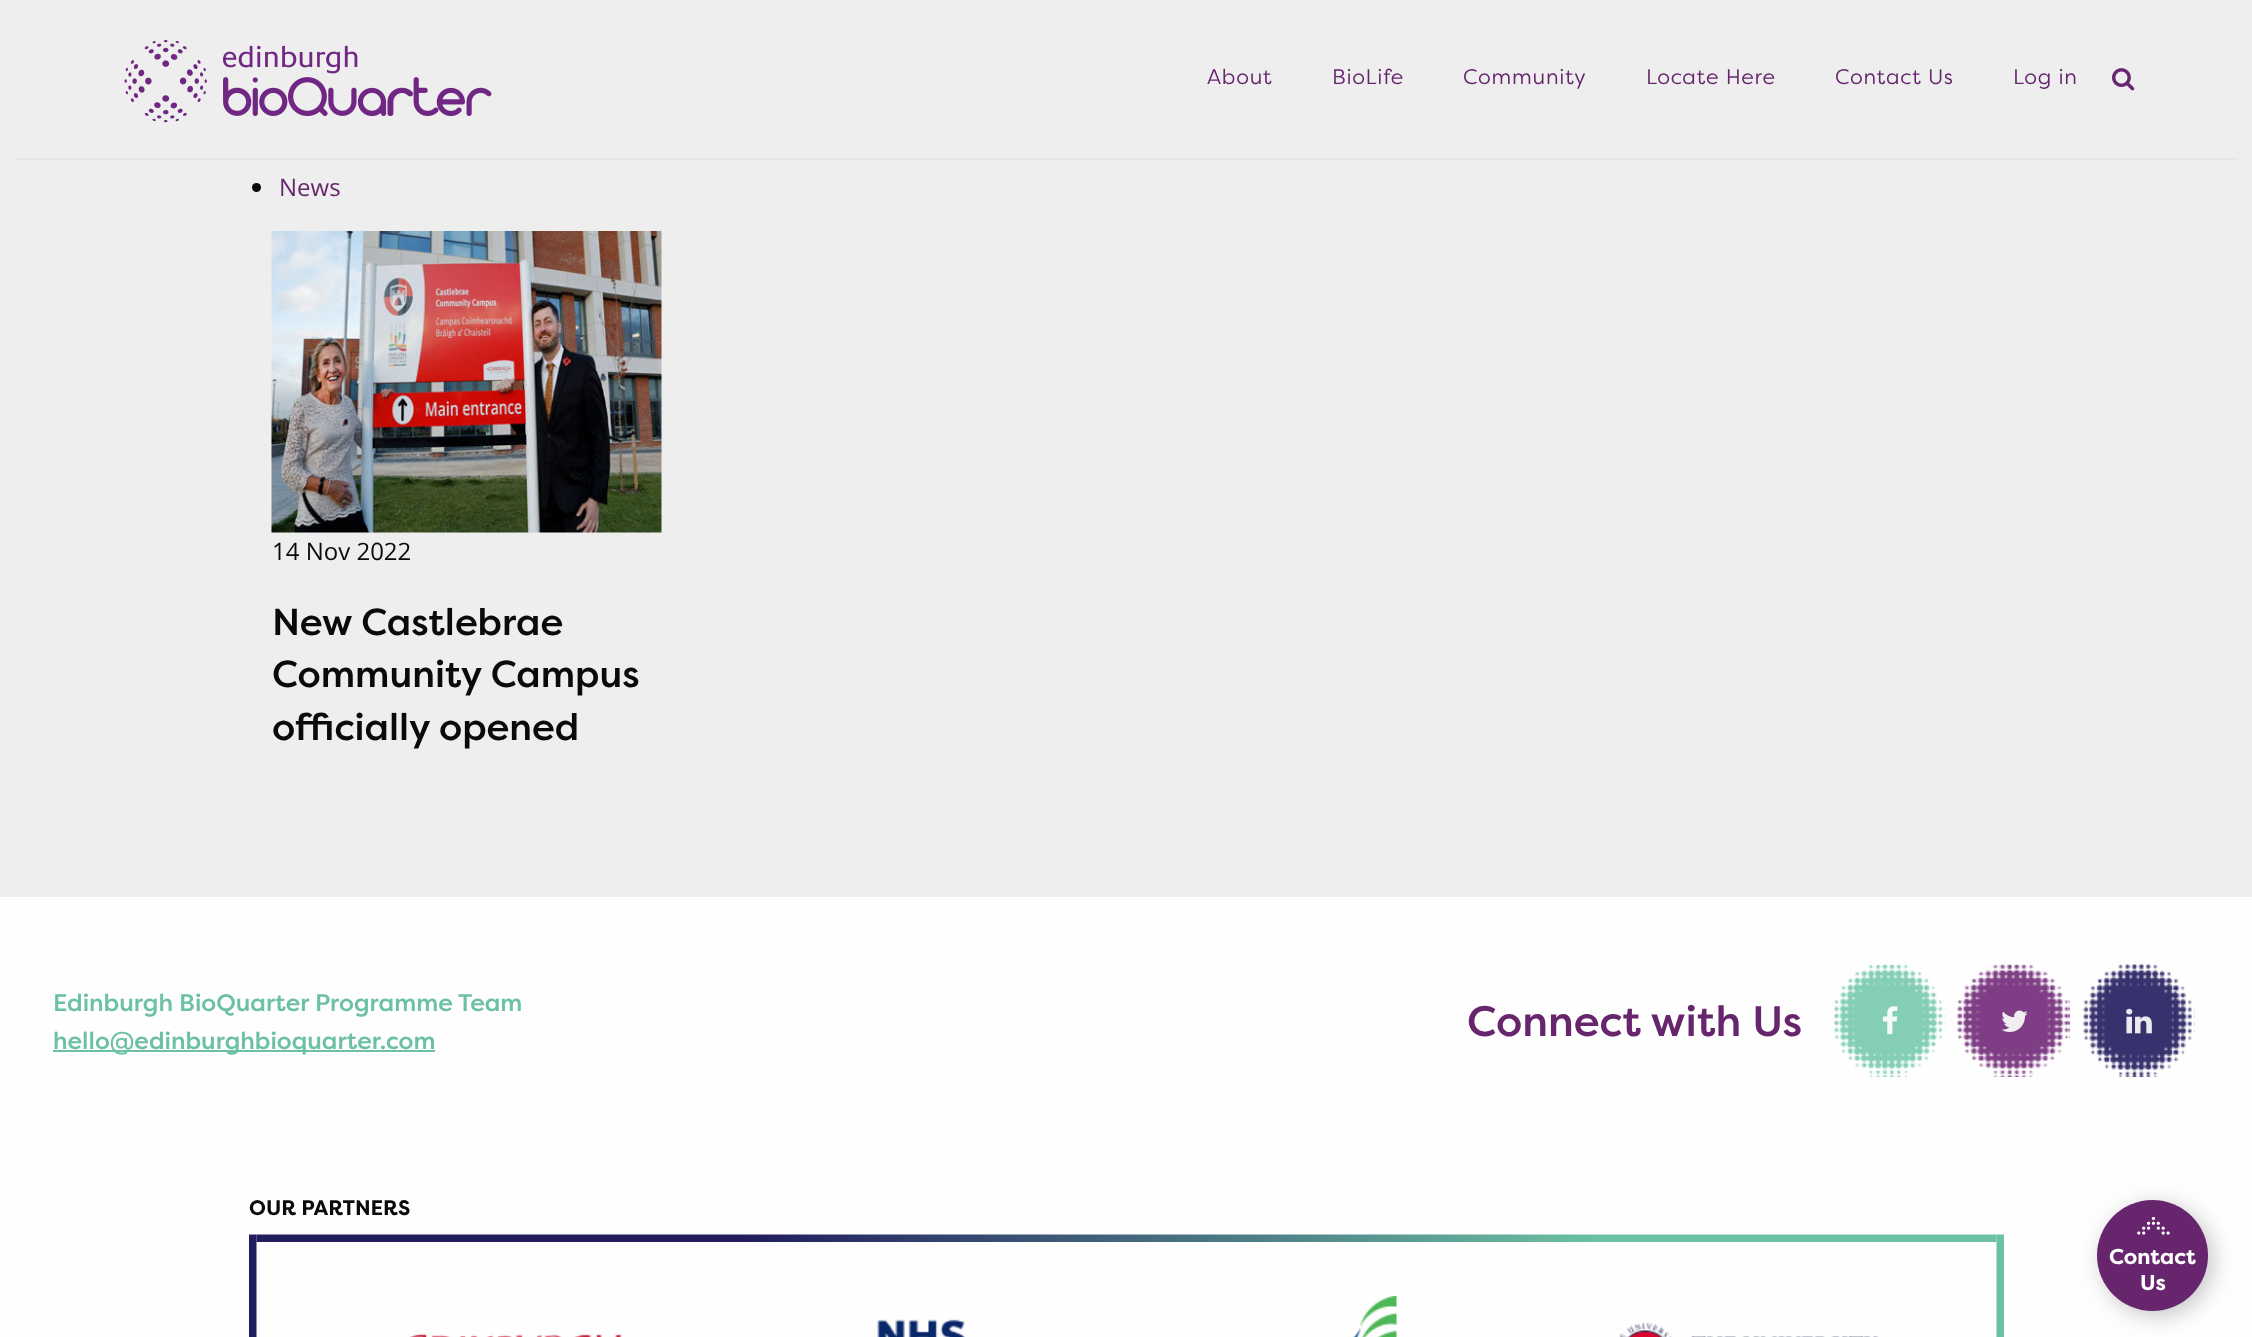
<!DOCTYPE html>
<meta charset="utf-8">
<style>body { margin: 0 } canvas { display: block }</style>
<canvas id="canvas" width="2252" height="1337"></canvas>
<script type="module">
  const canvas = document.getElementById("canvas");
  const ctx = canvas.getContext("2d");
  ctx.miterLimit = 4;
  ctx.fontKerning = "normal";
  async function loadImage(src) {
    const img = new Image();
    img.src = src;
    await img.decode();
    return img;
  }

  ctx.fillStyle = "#eeeeee";
  ctx.fillRect(0, 0, 2252, 1337);
  ctx.fillStyle = "#e6e6e6";
  ctx.fillRect(15, 158, 2223, 2);
  ctx.drawImage(await loadImage("img1.png"), 124, 39, 368, 84);
  ctx.letterSpacing = "0.75px";
  ctx.font = "21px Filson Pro";
  ctx.fillStyle = "#66256d";
  ctx.fillText("About", 1207, 84);
  ctx.fillText("BioLife", 1332, 84);
  ctx.fillText("Community", 1463, 84);
  ctx.fillText("Locate Here", 1646, 84);
  ctx.fillText("Contact Us", 1835, 84);
  ctx.fillText("Log in", 2013, 84);
  ctx.drawImage(await loadImage("img2.png"), 2112, 68, 23, 23);
  ctx.fillStyle = "#0a0a0a";
  ctx.beginPath();
  ctx.arc(256.5, 187.5, 4.5, 0, Math.PI * 2);
  ctx.fill();
  ctx.letterSpacing = "0px";
  ctx.font = "24px Open Sans";
  ctx.fillStyle = "#66256d";
  ctx.fillText("News", 279, 196);
  ctx.drawImage(await loadImage("img3.png"), 271, 231, 391, 302);
  ctx.fillStyle = "#0a0a0a";
  ctx.fillText("14 Nov 2022", 272, 560);
  ctx.font = "500 37.5px Filson Pro";
  ctx.fillText("New Castlebrae", 272, 635);
  ctx.fillText("Community Campus", 272, 687);
  ctx.fillText("officially opened", 272, 740);
  ctx.fillStyle = "#fefefe";
  ctx.fillRect(0, 897, 2252, 440);
  ctx.font = "500 24px Filson Pro";
  ctx.fillStyle = "#6bc1a2";
  ctx.fillText("Edinburgh BioQuarter Programme Team", 53, 1011);
  ctx.fillRect(53, 1050, 382, 2);
  ctx.fillText("hello@edinburghbioquarter.com", 53, 1049);
  ctx.font = "500 42.5px Filson Pro";
  ctx.fillStyle = "#66256d";
  ctx.fillText("Connect with Us", 1467, 1036);
  ctx.drawImage(await loadImage("img4.png"), 1834, 964, 112, 113);
  ctx.drawImage(await loadImage("img5.png"), 1883, 1006, 15, 29);
  ctx.drawImage(await loadImage("img6.png"), 1957, 964, 113, 113);
  ctx.drawImage(await loadImage("img7.png"), 2001, 1010, 27, 22);
  ctx.drawImage(await loadImage("img8.png"), 2083, 964, 112, 113);
  ctx.drawImage(await loadImage("img9.png"), 2126, 1008, 26, 26);
  ctx.font = "bold 21px Filson Pro";
  ctx.fillStyle = "#0a0a0a";
  ctx.fillText("OUR PARTNERS", 249, 1215);
  ctx.drawImage(await loadImage("img10.png"), 249, 1234, 1755, 103);
  ctx.drawImage(await loadImage("img11.png"), 409, 1333, 213, 4);
  ctx.drawImage(await loadImage("img12.png"), 877, 1319, 88, 18);
  ctx.drawImage(await loadImage("img13.png"), 1353, 1296, 44, 41);
  ctx.drawImage(await loadImage("img14.png"), 1619, 1322, 260, 15);
  ctx.fillStyle = "rgba(112, 112, 112, 0.4)";
  ctx.filter = "blur(11px)";
  ctx.beginPath();
  ctx.roundRect(2102, 1205, 111, 111, 55.5);
  ctx.fill();
  ctx.filter = "none";
  ctx.fillStyle = "#66256d";
  ctx.beginPath();
  ctx.arc(2152.5, 1255.5, 55.5, 0, Math.PI * 2);
  ctx.fill();
  ctx.drawImage(await loadImage("img15.png"), 2137, 1217, 33, 18);
  ctx.font = "bold 21.5px Filson Pro";
  ctx.fillStyle = "#fefefe";
  ctx.fillText("Contact", 2109, 1264);
  ctx.fillText("Us", 2140, 1290);
</script>
